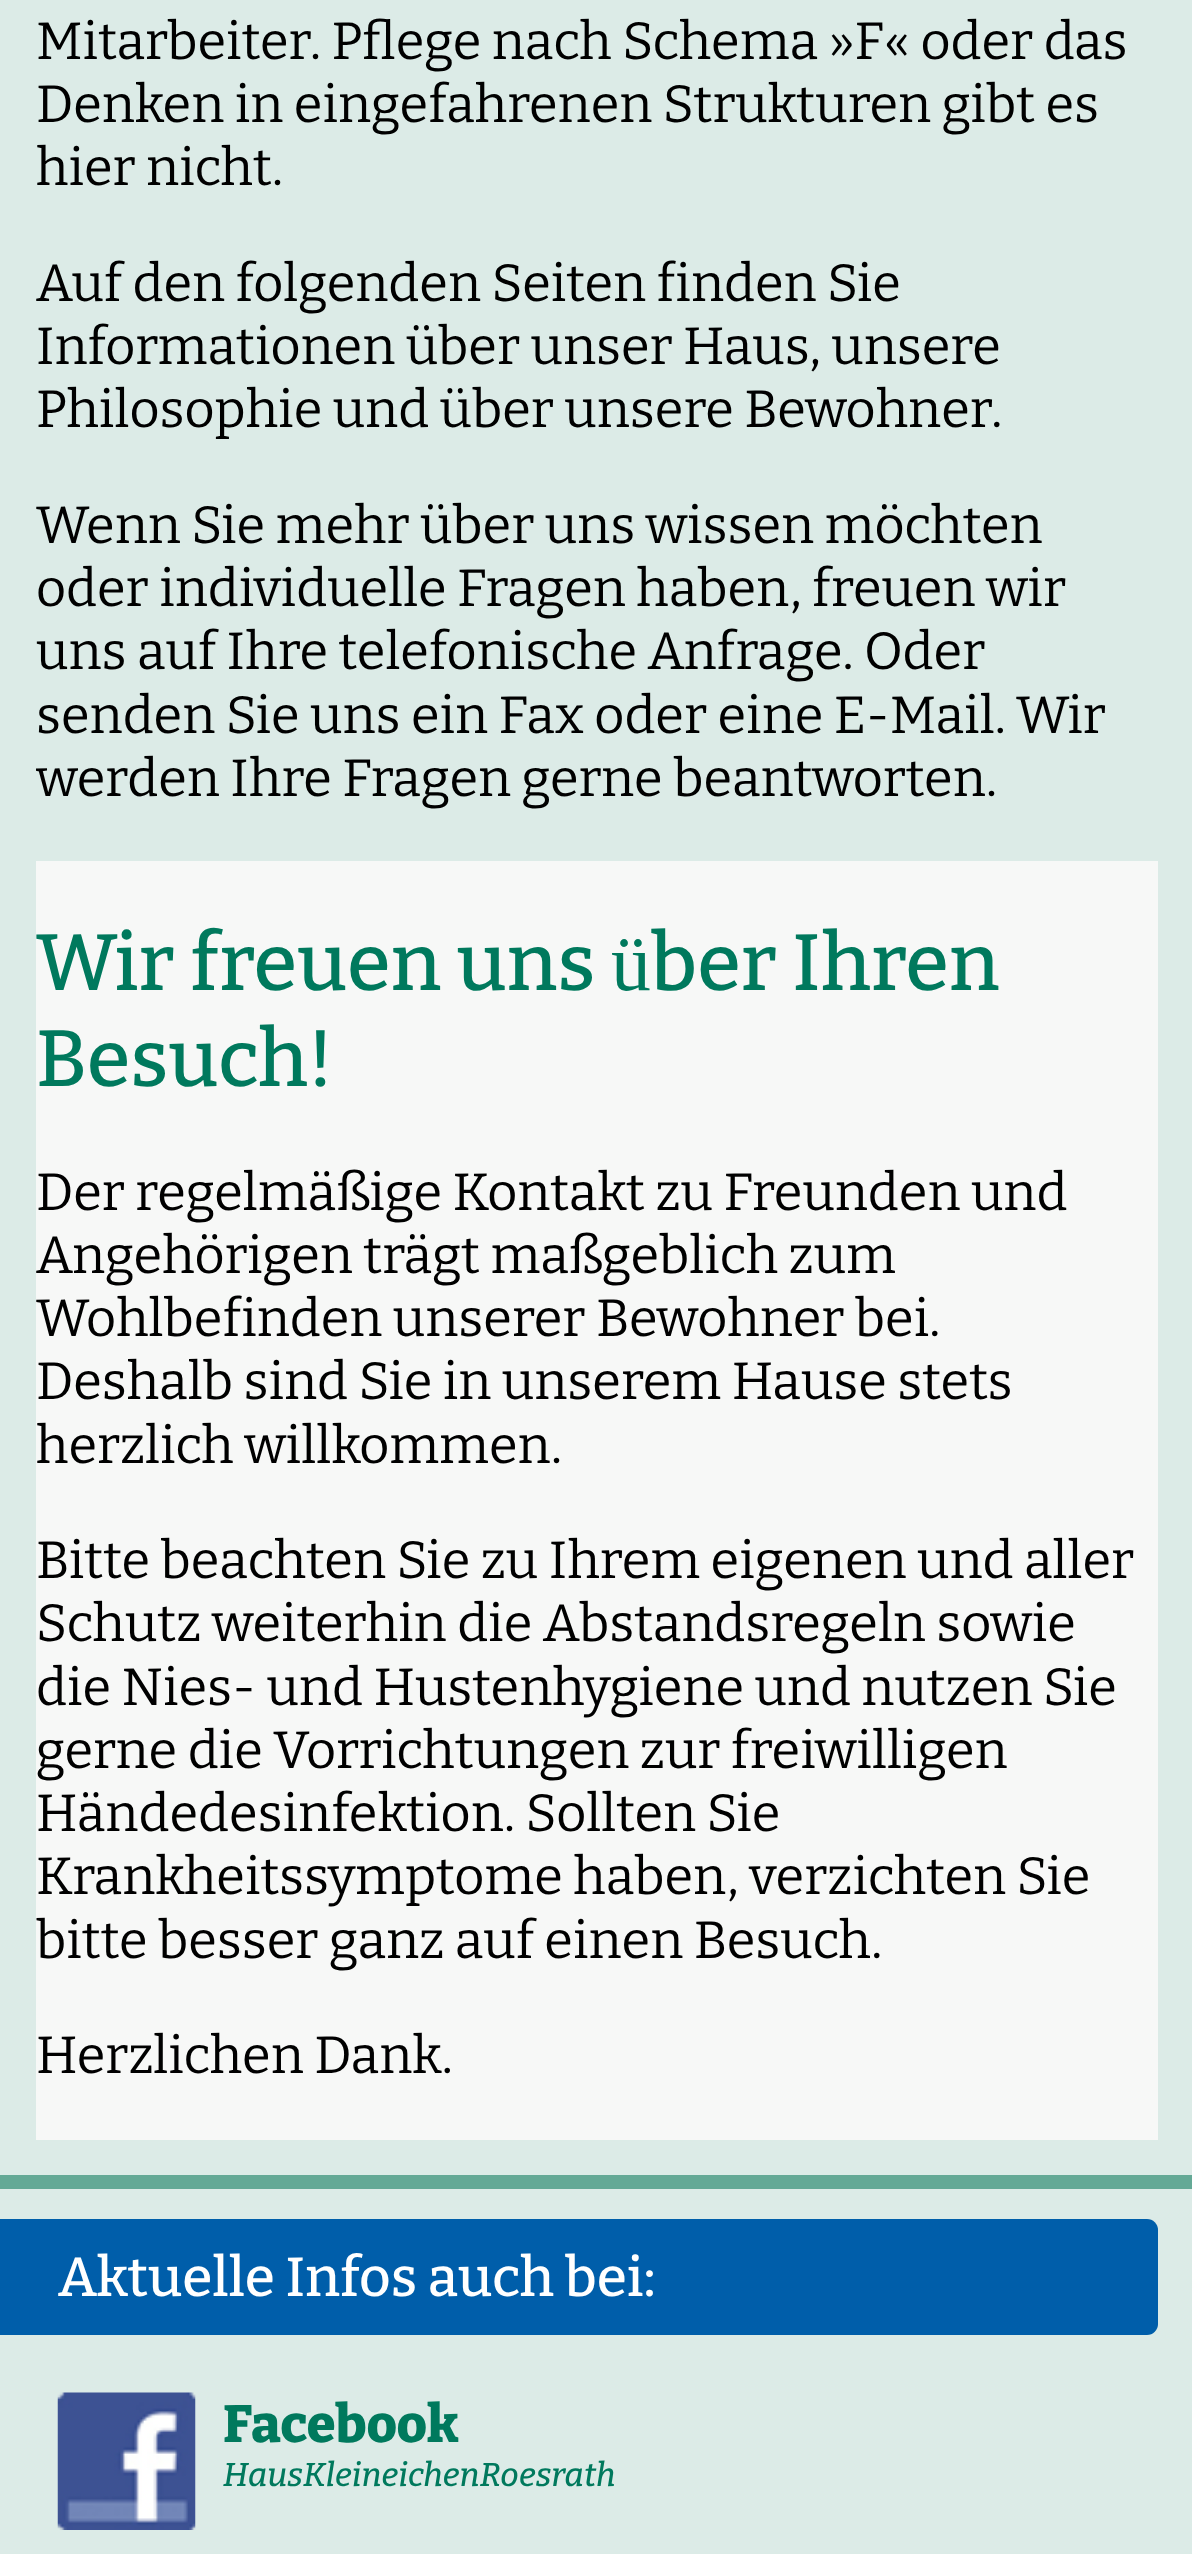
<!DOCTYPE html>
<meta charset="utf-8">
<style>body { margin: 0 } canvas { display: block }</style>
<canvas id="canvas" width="1192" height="2554"></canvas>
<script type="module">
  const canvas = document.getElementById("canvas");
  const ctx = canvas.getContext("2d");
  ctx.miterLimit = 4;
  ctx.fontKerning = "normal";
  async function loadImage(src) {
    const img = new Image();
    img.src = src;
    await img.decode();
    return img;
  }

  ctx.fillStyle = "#64a996";
  ctx.fillRect(0, 0, 1192, 2554);
  ctx.fillStyle = "#dcebe7";
  ctx.fillRect(0, 0, 1192, 2175);
  ctx.font = "100 52.25px Bitter";
  ctx.fillStyle = "#000000";
  ctx.fillText("Mitarbeiter. Pflege nach Schema »F« oder das", 36, 59);
  ctx.fillText("Denken in eingefahrenen Strukturen gibt es", 36, 122);
  ctx.fillText("hier nicht.", 36, 185);
  ctx.fillText("Auf den folgenden Seiten finden Sie", 36, 301);
  ctx.fillText("Informationen über unser Haus, unsere", 36, 364);
  ctx.fillText("Philosophie und über unsere Bewohner.", 36, 427);
  ctx.fillText("Wenn Sie mehr über uns wissen möchten", 36, 543);
  ctx.fillText("oder individuelle Fragen haben, freuen wir", 36, 606);
  ctx.fillText("uns auf Ihre telefonische Anfrage. Oder", 36, 669);
  ctx.fillText("senden Sie uns ein Fax oder eine E-Mail. Wir", 36, 733);
  ctx.save();
  ctx.beginPath();
  ctx.rect(36, 0, 1122, 861);
  ctx.clip();
  ctx.fillText("werden Ihre Fragen gerne beantworten.", 36, 796);
  ctx.restore();
  ctx.fillStyle = "#f7f8f7";
  ctx.fillRect(36, 861, 1122, 1279);
  ctx.font = "100 79.75px 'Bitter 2'";
  ctx.fillStyle = "#00795d";
  ctx.fillText("Wir freuen uns über Ihren", 36, 990);
  ctx.fillText("Besuch!", 36, 1086);
  ctx.font = "100 52.25px Bitter";
  ctx.fillStyle = "#000000";
  ctx.fillText("Der regelmäßige Kontakt zu Freunden und", 36, 1210);
  ctx.fillText("Angehörigen trägt maßgeblich zum", 36, 1273);
  ctx.fillText("Wohlbefinden unserer Bewohner bei.", 36, 1336);
  ctx.fillText("Deshalb sind Sie in unserem Hause stets", 36, 1399);
  ctx.fillText("herzlich willkommen.", 36, 1463);
  ctx.fillText("Bitte beachten Sie zu Ihrem eigenen und aller", 36, 1578);
  ctx.fillText("Schutz weiterhin die Abstandsregeln sowie", 36, 1641);
  ctx.fillText("die Nies- und Hustenhygiene und nutzen Sie", 36, 1705);
  ctx.fillText("gerne die Vorrichtungen zur freiwilligen", 36, 1768);
  ctx.fillText("Händedesinfektion. Sollten Sie", 36, 1831);
  ctx.fillText("Krankheitssymptome haben, verzichten Sie", 36, 1894);
  ctx.fillText("bitte besser ganz auf einen Besuch.", 36, 1958);
  ctx.fillText("Herzlichen Dank.", 36, 2073);
  ctx.fillStyle = "#dcebe7";
  ctx.fillRect(0, 2189, 1192, 365);
  ctx.fillStyle = "#005eaa";
  ctx.beginPath();
  ctx.roundRect(0, 2219, 1158, 116, [0, 11, 11, 0]);
  ctx.fill();
  ctx.font = "100 55px 'Bitter 2'";
  ctx.fillStyle = "#ffffff";
  ctx.fillText("Aktuelle Infos auch bei:", 58, 2296);
  ctx.drawImage(await loadImage("img1.png"), 57, 2392, 139, 138);
  ctx.font = "100 52.25px 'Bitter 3'";
  ctx.fillStyle = "#00795d";
  ctx.fillText("Facebook", 223, 2442);
  ctx.font = "italic 100 33px Bitter";
  ctx.fillText("HausKleineichenRoesrath", 223, 2486);
</script>
